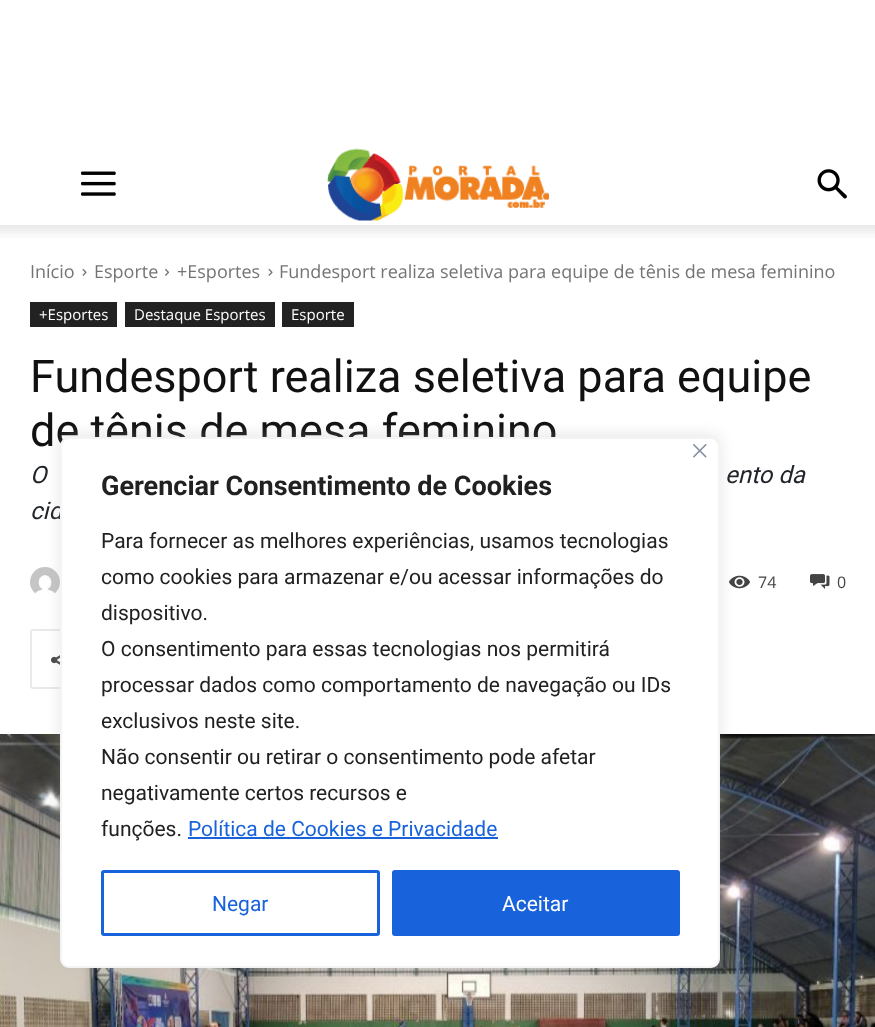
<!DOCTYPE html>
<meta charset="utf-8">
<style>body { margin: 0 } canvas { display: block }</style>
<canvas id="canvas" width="875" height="1027"></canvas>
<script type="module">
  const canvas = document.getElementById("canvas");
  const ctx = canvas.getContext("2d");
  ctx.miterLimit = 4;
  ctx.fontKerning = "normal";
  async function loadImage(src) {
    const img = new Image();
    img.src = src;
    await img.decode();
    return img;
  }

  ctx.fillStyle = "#ffffff";
  ctx.fillRect(0, 0, 875, 1027);
  ctx.drawImage(await loadImage("img1.png"), 81, 171, 35, 25);
  ctx.drawImage(await loadImage("img2.png"), 327, 148, 222, 73);
  ctx.drawImage(await loadImage("img3.png"), 817, 169, 30, 30);
  ctx.drawImage(await loadImage("img4.png"), 0, 225, 875, 13);
  ctx.font = "18px Open Sans";
  ctx.fillStyle = "#747474";
  ctx.fillText("Início", 30, 278);
  ctx.drawImage(await loadImage("img5.png"), 82, 268, 5, 8);
  ctx.fillText("Esporte", 94, 278);
  ctx.drawImage(await loadImage("img6.png"), 165, 268, 4, 8);
  ctx.fillText("+Esportes", 177, 278);
  ctx.drawImage(await loadImage("img5.png"), 268, 268, 5, 8);
  ctx.fillText("Fundesport realiza seletiva para equipe de tênis de mesa feminino", 279, 278);
  ctx.fillStyle = "#222222";
  ctx.fillRect(30, 302, 87, 25);
  ctx.font = "15px Open Sans";
  ctx.fillStyle = "#ffffff";
  ctx.fillText("+Esportes", 39, 320);
  ctx.fillStyle = "#222222";
  ctx.fillRect(125, 302, 150, 25);
  ctx.fillStyle = "#ffffff";
  ctx.fillText("Destaque Esportes", 134, 320);
  ctx.fillStyle = "#222222";
  ctx.fillRect(282, 302, 72, 25);
  ctx.fillStyle = "#ffffff";
  ctx.fillText("Esporte", 291, 320);
  ctx.font = "45px Roboto";
  ctx.fillStyle = "#111111";
  ctx.fillText("Fundesport realiza seletiva para equipe", 30, 392);
  ctx.fillText("de tênis de mesa feminino", 30, 446);
  ctx.font = "italic 24px Roboto";
  ctx.fillStyle = "#212529";
  ctx.fillText("O", 30, 483);
  ctx.fillText("ento da", 725, 483);
  ctx.fillText("cid", 30, 519);
  ctx.drawImage(await loadImage("img7.png"), 30, 567, 30, 27);
  ctx.drawImage(await loadImage("img8.png"), 729, 575, 21, 14);
  ctx.font = "16px Open Sans";
  ctx.fillStyle = "#444444";
  ctx.fillText("74", 758, 588);
  ctx.drawImage(await loadImage("img9.png"), 810, 574, 20, 15);
  ctx.fillText("0", 837, 588);
  ctx.beginPath();
  ctx.roundRect(31, 630, 61, 58, 2);
  ctx.strokeStyle = "#e9e9e9";
  ctx.lineWidth = 2;
  ctx.stroke();
  ctx.drawImage(await loadImage("img10.png"), 51, 655, 9, 10);
  ctx.drawImage(await loadImage("img11.png"), 0, 734, 875, 293);
  ctx.fillStyle = "rgba(172, 171, 171, 0.3)";
  ctx.filter = "blur(7.5px)";
  ctx.beginPath();
  ctx.roundRect(60, 435, 660, 531, 9);
  ctx.fill();
  ctx.filter = "none";
  ctx.fillStyle = "#ffffff";
  ctx.beginPath();
  ctx.roundRect(61, 438, 658, 529, 8);
  ctx.fill();
  ctx.strokeStyle = "#f4f4f4";
  ctx.stroke();
  ctx.drawImage(await loadImage("img12.png"), 693, 444, 14, 14);
  ctx.font = "bold 27px Roboto";
  ctx.fillStyle = "#212121";
  ctx.fillText("Gerenciar Consentimento de Cookies", 101, 495);
  ctx.font = "21px Roboto";
  ctx.fillText("Para fornecer as melhores experiências, usamos tecnologias", 101, 548);
  ctx.fillText("como cookies para armazenar e/ou acessar informações do", 101, 584);
  ctx.fillText("dispositivo.", 101, 620);
  ctx.fillText("O consentimento para essas tecnologias nos permitirá", 101, 656);
  ctx.fillText("processar dados como comportamento de navegação ou IDs", 101, 692);
  ctx.fillText("exclusivos neste site.", 101, 728);
  ctx.fillText("Não consentir ou retirar o consentimento pode afetar", 101, 764);
  ctx.fillText("negativamente certos recursos e", 101, 800);
  ctx.fillText("funções.", 101, 836);
  ctx.fillStyle = "#1863dc";
  ctx.fillText("Política de Cookies e Privacidade", 188, 836);
  ctx.fillRect(188, 837, 310, 2);
  ctx.beginPath();
  ctx.roundRect(102.5, 871.5, 276, 63, 1.5);
  ctx.strokeStyle = "#1863dc";
  ctx.lineWidth = 3;
  ctx.stroke();
  ctx.fillText("Negar", 212, 911);
  ctx.beginPath();
  ctx.roundRect(393.5, 871.5, 285, 63, 1.5);
  ctx.fill();
  ctx.stroke();
  ctx.fillStyle = "#ffffff";
  ctx.fillText("Aceitar", 502, 911);
</script>
